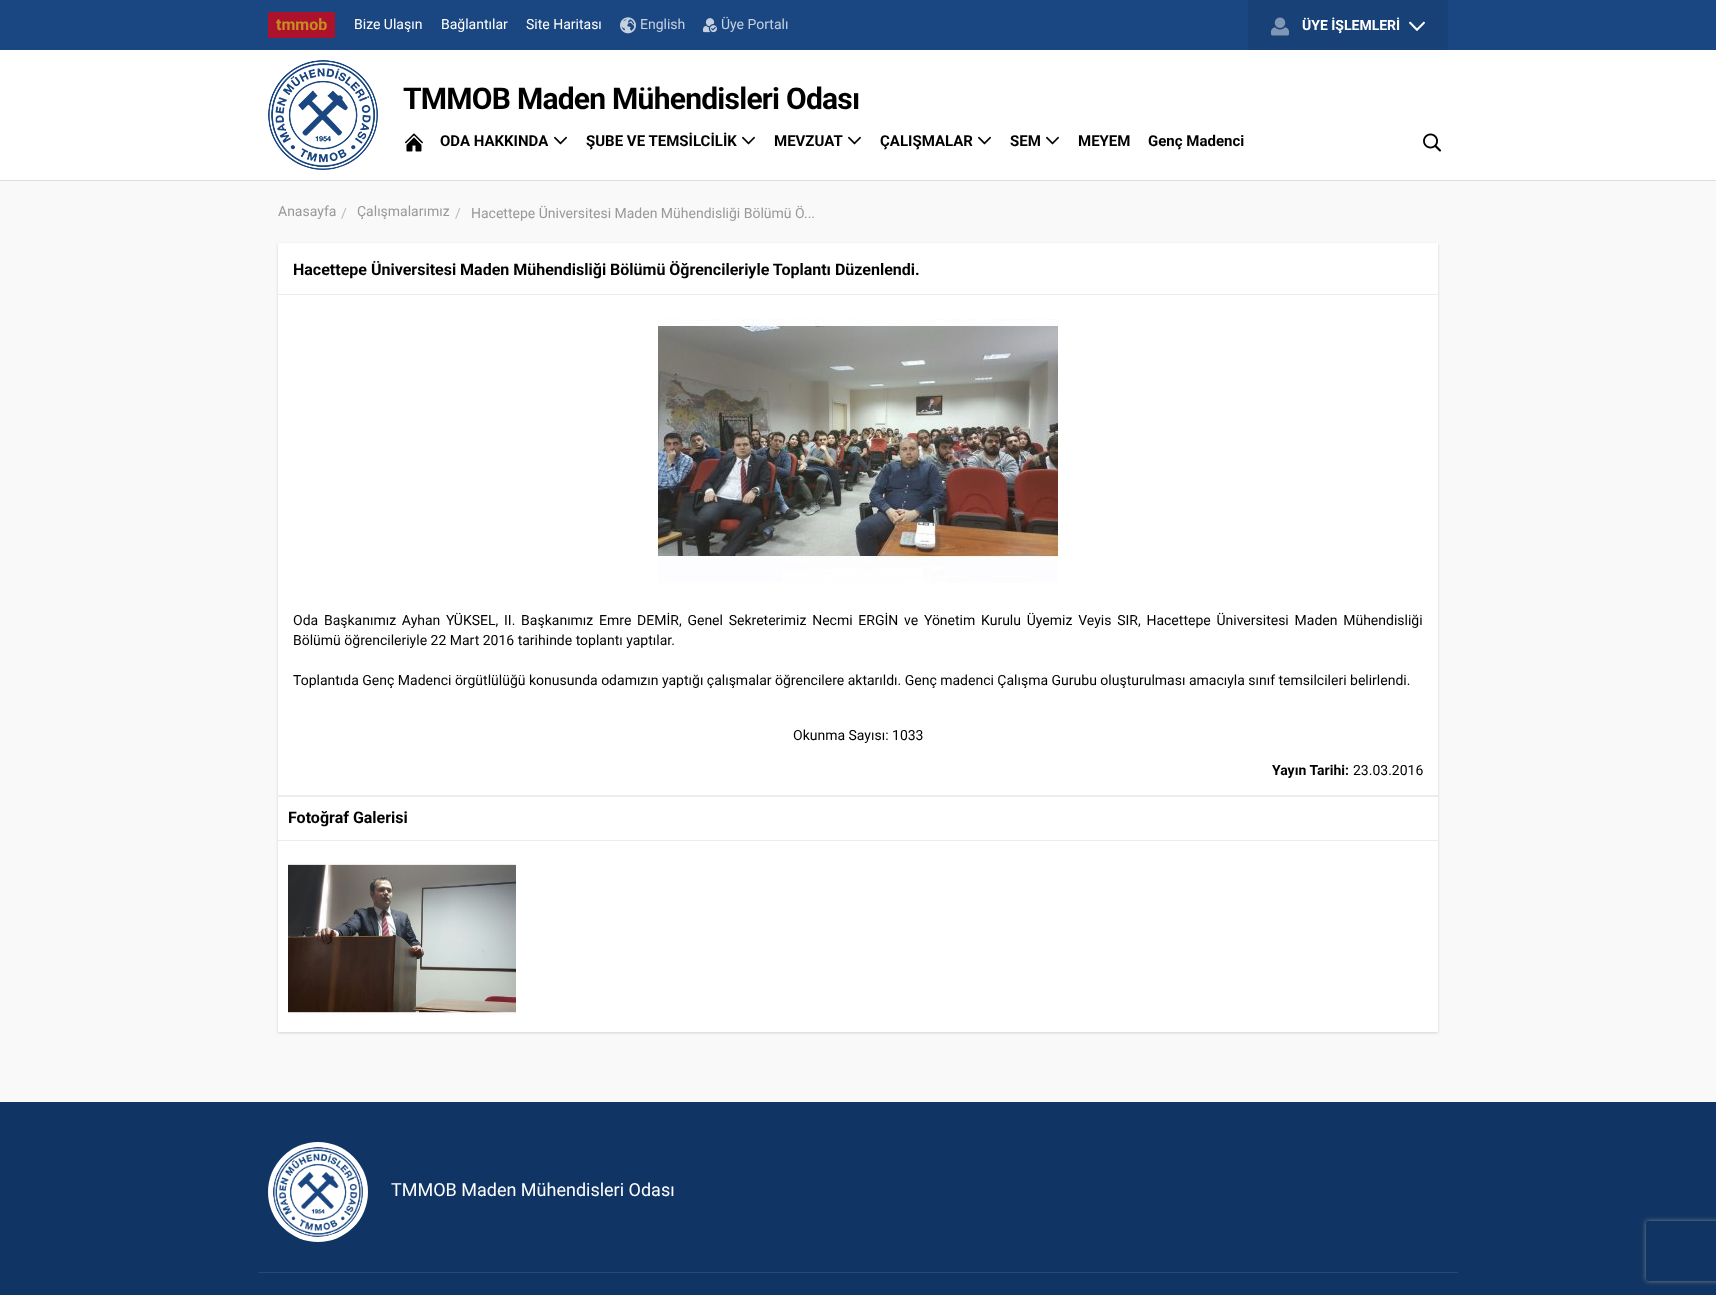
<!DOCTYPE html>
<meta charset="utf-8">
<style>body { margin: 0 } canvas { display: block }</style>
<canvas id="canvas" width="1716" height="1295"></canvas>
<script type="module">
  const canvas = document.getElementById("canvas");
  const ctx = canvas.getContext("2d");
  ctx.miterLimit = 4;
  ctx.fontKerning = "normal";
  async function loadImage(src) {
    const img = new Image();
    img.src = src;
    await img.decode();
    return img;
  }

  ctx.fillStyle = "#f9f9f9";
  ctx.fillRect(0, 0, 1716, 1295);
  ctx.fillStyle = "#1a4781";
  ctx.fillRect(0, 0, 1716, 50);
  ctx.fillStyle = "#ac122c";
  ctx.fillRect(268, 12, 67, 26);
  ctx.font = "bold 16px Roboto";
  ctx.fillStyle = "#c68e20";
  ctx.fillText("tmmob", 276, 30);
  ctx.font = "14px Roboto";
  ctx.fillStyle = "#ffffff";
  ctx.fillText("Bize Ulaşın", 354, 29);
  ctx.fillText("Bağlantılar", 441, 29);
  ctx.fillText("Site Haritası", 526, 29);
  ctx.drawImage(await loadImage("img1.png"), 620, 17, 16, 17);
  ctx.fillStyle = "#c6d1e0";
  ctx.fillText("English", 640, 29);
  ctx.drawImage(await loadImage("img2.png"), 703, 18, 14, 15);
  ctx.fillText("Üye Portalı", 721, 29);
  ctx.fillStyle = "#184177";
  ctx.fillRect(1248, 0, 200, 50);
  ctx.drawImage(await loadImage("img3.png"), 1271, 17, 18, 19);
  ctx.font = "bold 14px Roboto";
  ctx.fillStyle = "#ffffff";
  ctx.fillText("ÜYE İŞLEMLERİ", 1302, 30);
  ctx.drawImage(await loadImage("img4.png"), 1409, 21, 16, 10);
  ctx.fillRect(0, 50, 1716, 130);
  ctx.fillStyle = "#dddddd";
  ctx.fillRect(0, 180, 1716, 1);
  ctx.drawImage(await loadImage("img5.png"), 268, 60, 110, 110);
  ctx.letterSpacing = "-0.75px";
  ctx.font = "bold 30px Roboto";
  ctx.fillStyle = "#000000";
  ctx.fillText("TMMOB Maden Mühendisleri Odası", 403, 109);
  ctx.drawImage(await loadImage("img6.png"), 405, 133, 18, 19);
  ctx.letterSpacing = "0px";
  ctx.font = "bold 15px Roboto";
  ctx.fillText("ODA HAKKINDA", 440, 146);
  ctx.drawImage(await loadImage("img7.png"), 554, 136, 13, 9);
  ctx.fillText("ŞUBE VE TEMSİLCİLİK", 586, 146);
  ctx.drawImage(await loadImage("img7.png"), 742, 136, 13, 9);
  ctx.fillText("MEVZUAT", 774, 146);
  ctx.drawImage(await loadImage("img7.png"), 848, 136, 13, 9);
  ctx.fillText("ÇALIŞMALAR", 880, 146);
  ctx.drawImage(await loadImage("img7.png"), 978, 136, 13, 9);
  ctx.fillText("SEM", 1010, 146);
  ctx.drawImage(await loadImage("img7.png"), 1046, 136, 13, 9);
  ctx.fillText("MEYEM", 1078, 146);
  ctx.fillText("Genç Madenci", 1148, 146);
  ctx.drawImage(await loadImage("img8.png"), 1423, 133, 18, 19);
  ctx.font = "14px Roboto";
  ctx.fillStyle = "#999999";
  ctx.fillText("Anasayfa", 278, 216);
  ctx.fillStyle = "#bbbbbb";
  ctx.fillText("/", 341, 218);
  ctx.fillStyle = "#999999";
  ctx.fillText("Çalışmalarımız", 357, 216);
  ctx.fillStyle = "#bbbbbb";
  ctx.fillText("/", 455, 218);
  ctx.fillStyle = "#999999";
  ctx.fillText("Hacettepe Üniversitesi Maden Mühendisliği Bölümü Ö...", 471, 218);
  ctx.fillStyle = "rgba(0, 0, 0, 0.15)";
  ctx.filter = "blur(1.5px)";
  ctx.beginPath();
  ctx.rect(278, 244, 1160, 789);
  ctx.fill();
  ctx.filter = "none";
  ctx.fillStyle = "#ffffff";
  ctx.fillRect(278, 243, 1160, 789);
  ctx.fillStyle = "#ececec";
  ctx.fillRect(278, 294, 1160, 1);
  ctx.font = "bold 16px Roboto";
  ctx.fillStyle = "#000000";
  ctx.fillText("Hacettepe Üniversitesi Maden Mühendisliği Bölümü Öğrencileriyle Toplantı Düzenlendi.", 293, 275);
  ctx.drawImage(await loadImage("img9.png"), 658, 319, 400, 264);
  ctx.fillStyle = "#ececec";
  ctx.fillRect(278, 795, 1160, 2);
  ctx.wordSpacing = "2.3px";
  ctx.font = "14px Roboto";
  ctx.fillStyle = "#000000";
  ctx.fillText("Oda Başkanımız Ayhan YÜKSEL, II. Başkanımız Emre DEMİR, Genel Sekreterimiz Necmi ERGİN ve Yönetim Kurulu Üyemiz Veyis SIR, Hacettepe Üniversitesi Maden Mühendisliği", 293, 625);
  ctx.wordSpacing = "0px";
  ctx.fillText("Bölümü öğrencileriyle 22 Mart 2016 tarihinde toplantı yaptılar.", 293, 645);
  ctx.fillText("Toplantıda Genç Madenci örgütlülüğü konusunda odamızın yaptığı çalışmalar öğrencilere aktarıldı. Genç madenci Çalışma Gurubu oluşturulması amacıyla sınıf temsilcileri belirlendi.", 293, 685);
  ctx.fillText("Okunma Sayısı: 1033", 793, 740);
  ctx.font = "bold 14px Roboto";
  ctx.fillText("Yayın Tarihi:", 1272, 775);
  ctx.font = "14px Roboto";
  ctx.fillText("23.03.2016", 1353, 775);
  ctx.fillStyle = "#ececec";
  ctx.fillRect(278, 840, 1160, 1);
  ctx.font = "bold 16px Roboto";
  ctx.fillStyle = "#000000";
  ctx.fillText("Fotoğraf Galerisi", 288, 823);
  ctx.drawImage(await loadImage("img10.png"), 288, 862, 228, 153);
  ctx.fillStyle = "#103564";
  ctx.fillRect(0, 1102, 1716, 193);
  ctx.fillStyle = "#ffffff";
  ctx.beginPath();
  ctx.arc(318, 1192, 50, 0, Math.PI * 2);
  ctx.fill();
  ctx.drawImage(await loadImage("img11.png"), 273, 1147, 90, 90);
  ctx.font = "18px Roboto";
  ctx.fillText("TMMOB Maden Mühendisleri Odası", 391, 1196);
  ctx.fillStyle = "#284974";
  ctx.fillRect(258, 1272, 1200, 1);
  ctx.save();
  ctx.beginPath();
  ctx.moveTo(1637, 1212);
  ctx.lineTo(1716, 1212);
  ctx.lineTo(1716, 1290);
  ctx.lineTo(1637, 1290);
  ctx.closePath();
  ctx.moveTo(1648, 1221);
  ctx.lineTo(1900, 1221);
  ctx.bezierCurveTo(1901, 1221, 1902, 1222, 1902, 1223);
  ctx.lineTo(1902, 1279);
  ctx.bezierCurveTo(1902, 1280, 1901, 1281, 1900, 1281);
  ctx.lineTo(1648, 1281);
  ctx.bezierCurveTo(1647, 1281, 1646, 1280, 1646, 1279);
  ctx.lineTo(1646, 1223);
  ctx.bezierCurveTo(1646, 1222, 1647, 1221, 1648, 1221);
  ctx.closePath();
  ctx.clip("evenodd");
  ctx.fillStyle = "#808080";
  ctx.filter = "blur(2.5px)";
  ctx.beginPath();
  ctx.roundRect(1646, 1221, 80, 60, 2);
  ctx.fill();
  ctx.filter = "none";
  ctx.restore();
</script>
